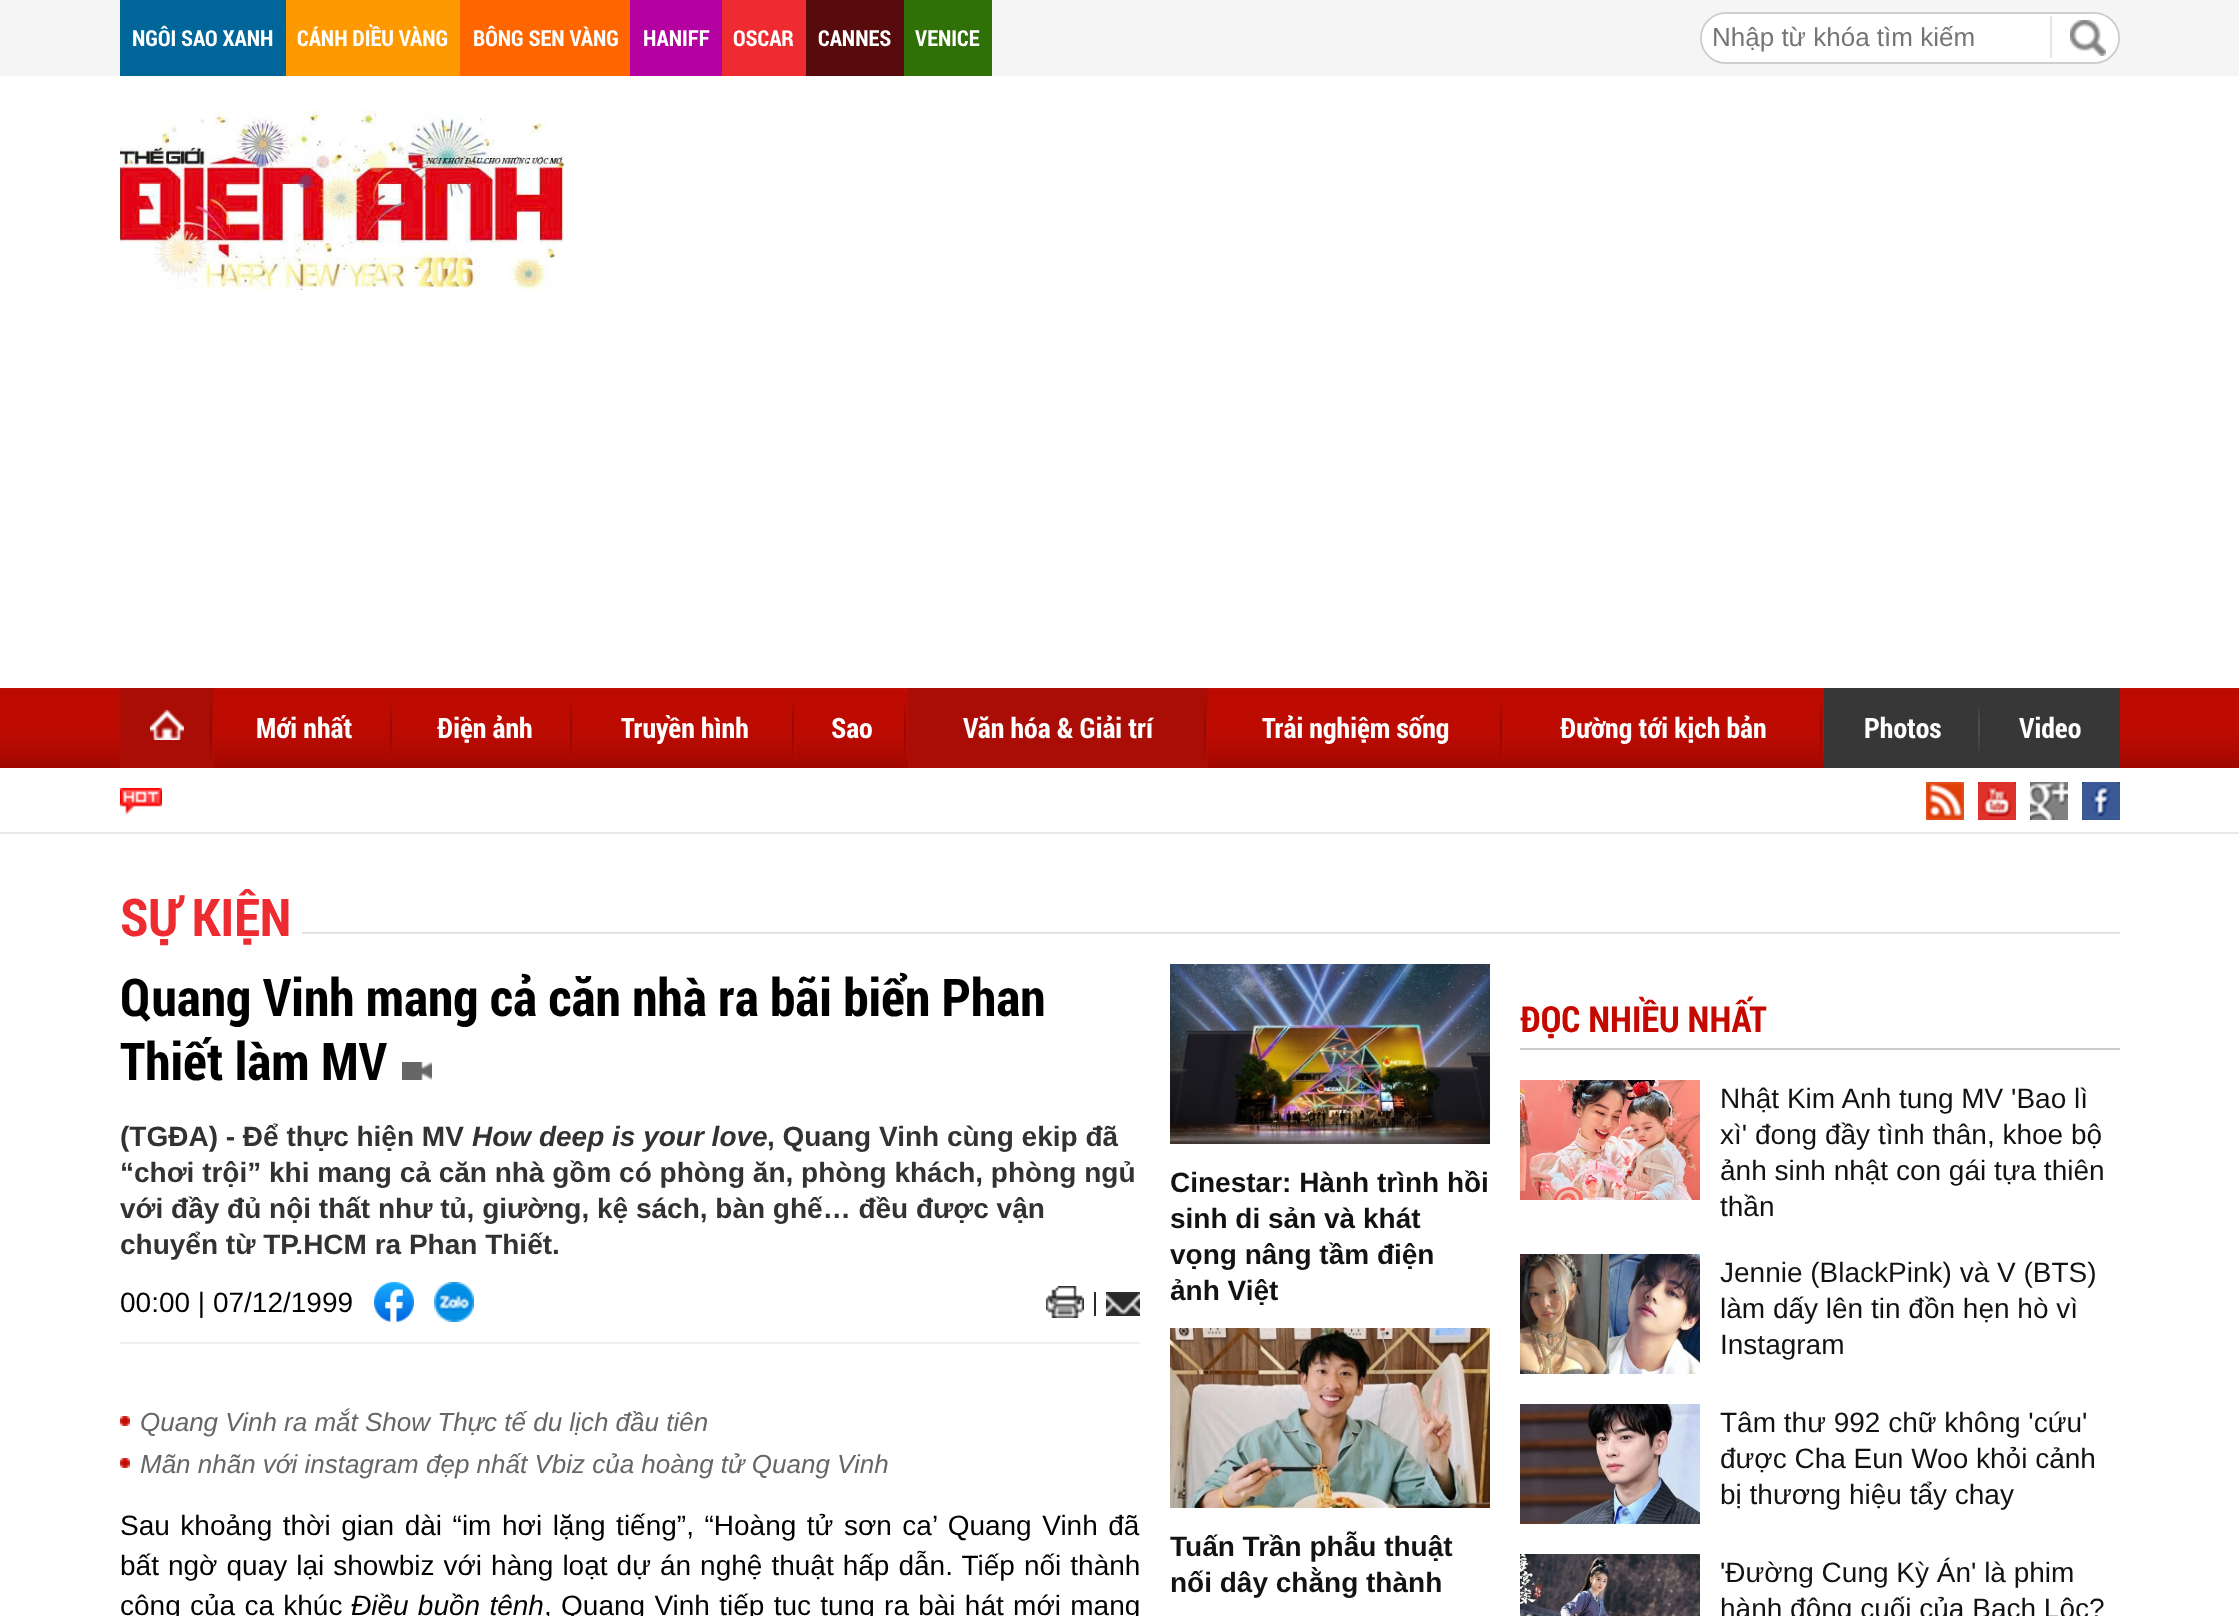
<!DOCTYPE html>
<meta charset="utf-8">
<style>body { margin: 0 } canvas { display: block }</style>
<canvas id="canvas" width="2239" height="1616"></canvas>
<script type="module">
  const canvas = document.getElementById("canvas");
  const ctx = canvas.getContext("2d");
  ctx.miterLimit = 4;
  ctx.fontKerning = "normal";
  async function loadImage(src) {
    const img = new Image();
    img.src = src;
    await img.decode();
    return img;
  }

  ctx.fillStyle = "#ffffff";
  ctx.fillRect(0, 0, 2239, 1616);
  ctx.fillStyle = "#f5f5f5";
  ctx.fillRect(0, 0, 2239, 76);
  ctx.fillStyle = "#006699";
  ctx.fillRect(120, 0, 166, 76);
  ctx.font = "bold 22px Roboto Condensed";
  ctx.fillStyle = "#ffffff";
  ctx.fillText("NGÔI SAO XANH", 132, 46);
  ctx.fillStyle = "#ff9900";
  ctx.fillRect(286, 0, 174, 76);
  ctx.fillStyle = "#ffffff";
  ctx.fillText("CÁNH DIỀU VÀNG", 297, 46);
  ctx.fillStyle = "#ff6600";
  ctx.fillRect(460, 0, 170, 76);
  ctx.fillStyle = "#ffffff";
  ctx.fillText("BÔNG SEN VÀNG", 473, 46);
  ctx.fillStyle = "#b400a0";
  ctx.fillRect(630, 0, 92, 76);
  ctx.fillStyle = "#ffffff";
  ctx.fillText("HANIFF", 643, 46);
  ctx.fillStyle = "#ee2b30";
  ctx.fillRect(722, 0, 84, 76);
  ctx.fillStyle = "#ffffff";
  ctx.fillText("OSCAR", 733, 46);
  ctx.fillStyle = "#580b0d";
  ctx.fillRect(806, 0, 98, 76);
  ctx.fillStyle = "#ffffff";
  ctx.fillText("CANNES", 818, 46);
  ctx.fillStyle = "#2f7007";
  ctx.fillRect(904, 0, 88, 76);
  ctx.fillStyle = "#ffffff";
  ctx.fillText("VENICE", 915, 46);
  ctx.beginPath();
  ctx.roundRect(1701, 13, 418, 50, 25);
  ctx.fill();
  ctx.strokeStyle = "#cecece";
  ctx.lineWidth = 2;
  ctx.stroke();
  ctx.beginPath();
  ctx.roundRect(1702, 14, 350, 48, [24, 0, 0, 24]);
  ctx.fill();
  ctx.fillStyle = "#e5e5e5";
  ctx.fillRect(2050, 16, 2, 42);
  ctx.font = "26px Liberation Sans";
  ctx.fillStyle = "#757575";
  ctx.fillText("Nhập từ khóa tìm kiếm", 1712, 46);
  ctx.fillStyle = "#ffffff";
  ctx.beginPath();
  ctx.roundRect(2058, 14, 60, 48, [0, 24, 24, 0]);
  ctx.fill();
  ctx.drawImage(await loadImage("img1.png"), 2070, 20, 36, 36);
  ctx.drawImage(await loadImage("img2.png"), 120, 110, 444, 180);
  ctx.drawImage(await loadImage("img3.png"), 0, 688, 2239, 80);
  ctx.fillStyle = "#a90d06";
  ctx.fillRect(120, 688, 94, 80);
  ctx.drawImage(await loadImage("img4.png"), 210, 702, 4, 56);
  ctx.drawImage(await loadImage("img5.png"), 150, 710, 34, 30);
  ctx.drawImage(await loadImage("img6.png"), 390, 700, 4, 58);
  ctx.font = "bold 28px Roboto Condensed";
  ctx.fillStyle = "#ffffff";
  ctx.fillText("Mới nhất", 256, 738);
  ctx.drawImage(await loadImage("img6.png"), 570, 700, 4, 58);
  ctx.fillText("Điện ảnh", 437, 738);
  ctx.drawImage(await loadImage("img6.png"), 792, 700, 4, 58);
  ctx.fillText("Truyền hình", 621, 738);
  ctx.drawImage(await loadImage("img6.png"), 904, 700, 4, 58);
  ctx.fillText("Sao", 831, 738);
  ctx.fillStyle = "#a90d06";
  ctx.fillRect(908, 688, 300, 80);
  ctx.drawImage(await loadImage("img4.png"), 1204, 702, 4, 56);
  ctx.fillStyle = "#ffffff";
  ctx.fillText("Văn hóa & Giải trí", 963, 738);
  ctx.drawImage(await loadImage("img6.png"), 1500, 700, 4, 58);
  ctx.fillText("Trải nghiệm sống", 1262, 738);
  ctx.drawImage(await loadImage("img6.png"), 1820, 700, 4, 58);
  ctx.fillText("Đường tới kịch bản", 1560, 738);
  ctx.fillStyle = "#373737";
  ctx.fillRect(1824, 688, 296, 80);
  ctx.drawImage(await loadImage("img7.png"), 1978, 707, 4, 47);
  ctx.fillStyle = "#ffffff";
  ctx.fillText("Photos", 1864, 738);
  ctx.fillText("Video", 2019, 738);
  ctx.fillStyle = "#e9e9e9";
  ctx.fillRect(0, 832, 2239, 2);
  ctx.drawImage(await loadImage("img8.png"), 120, 788, 42, 26);
  ctx.drawImage(await loadImage("img9.png"), 1926, 782, 38, 38);
  ctx.drawImage(await loadImage("img10.png"), 1978, 782, 38, 38);
  ctx.drawImage(await loadImage("img11.png"), 2030, 782, 38, 38);
  ctx.drawImage(await loadImage("img12.png"), 2082, 782, 38, 38);
  ctx.drawImage(await loadImage("img13.png"), 302, 932, 1818, 2);
  ctx.font = "bold 52px Roboto Condensed";
  ctx.fillStyle = "#ee2b30";
  ctx.fillText("SỰ KIỆN", 120, 936);
  ctx.fillStyle = "#000000";
  ctx.fillText("Quang Vinh mang cả căn nhà ra bãi biển Phan", 120, 1016);
  ctx.fillText("Thiết làm MV", 120, 1080);
  ctx.drawImage(await loadImage("img14.png"), 402, 1062, 30, 18);
  ctx.font = "bold 28px Liberation Sans";
  ctx.fillStyle = "#323232";
  ctx.fillText("(TGĐA) - Để thực hiện MV", 120, 1146);
  ctx.font = "italic bold 28px Liberation Sans";
  ctx.fillText("How deep is your love", 472, 1146);
  ctx.font = "bold 28px Liberation Sans";
  ctx.fillText(", Quang Vinh cùng ekip đã", 767, 1146);
  ctx.fillText("“chơi trội” khi mang cả căn nhà gồm có phòng ăn, phòng khách, phòng ngủ", 120, 1182);
  ctx.fillText("với đầy đủ nội thất như tủ, giường, kệ sách, bàn ghế… đều được vận", 120, 1218);
  ctx.fillText("chuyển từ TP.HCM ra Phan Thiết.", 120, 1254);
  ctx.fillStyle = "#efefef";
  ctx.fillRect(120, 1342, 1020, 2);
  ctx.font = "28px Liberation Sans";
  ctx.fillStyle = "#000000";
  ctx.fillText("00:00 | 07/12/1999", 120, 1312);
  ctx.drawImage(await loadImage("img15.png"), 374, 1282, 40, 40);
  ctx.drawImage(await loadImage("img16.png"), 434, 1282, 40, 40);
  ctx.drawImage(await loadImage("img17.png"), 1046, 1286, 38, 32);
  ctx.fillStyle = "#2a2a2a";
  ctx.fillRect(1094, 1292, 2, 24);
  ctx.drawImage(await loadImage("img18.png"), 1106, 1292, 34, 24);
  ctx.drawImage(await loadImage("img19.png"), 120, 1416, 10, 10);
  ctx.font = "italic 26px Liberation Sans";
  ctx.fillStyle = "#666666";
  ctx.fillText("Quang Vinh ra mắt Show Thực tế du lịch đầu tiên", 140, 1431);
  ctx.drawImage(await loadImage("img19.png"), 120, 1458, 10, 10);
  ctx.fillText("Mãn nhãn với instagram đẹp nhất Vbiz của hoàng tử Quang Vinh", 140, 1473);
  ctx.wordSpacing = "2.75px";
  ctx.font = "28px Liberation Sans";
  ctx.fillStyle = "#000000";
  ctx.fillText("Sau khoảng thời gian dài “im hơi lặng tiếng”, “Hoàng tử sơn ca’ Quang Vinh đã", 120, 1535);
  ctx.wordSpacing = "1.25px";
  ctx.fillText("bất ngờ quay lại showbiz với hàng loạt dự án nghệ thuật hấp dẫn. Tiếp nối thành", 120, 1575);
  ctx.wordSpacing = "1.5px";
  ctx.fillText("công của ca khúc", 120, 1615);
  ctx.font = "italic 28px Liberation Sans";
  ctx.fillText("Điều buồn tênh", 351, 1615);
  ctx.font = "28px Liberation Sans";
  ctx.fillText(", Quang Vinh tiếp tục tung ra bài hát mới mang", 544, 1615);
  ctx.drawImage(await loadImage("img20.png"), 1170, 964, 320, 180);
  ctx.wordSpacing = "0px";
  ctx.font = "bold 28px Liberation Sans";
  ctx.fillStyle = "#121212";
  ctx.fillText("Cinestar: Hành trình hồi", 1170, 1192);
  ctx.fillText("sinh di sản và khát", 1170, 1228);
  ctx.fillText("vọng nâng tầm điện", 1170, 1264);
  ctx.fillText("ảnh Việt", 1170, 1300);
  ctx.drawImage(await loadImage("img21.png"), 1170, 1328, 320, 180);
  ctx.fillText("Tuấn Trần phẫu thuật", 1170, 1556);
  ctx.fillText("nối dây chằng thành", 1170, 1592);
  ctx.fillStyle = "#cccccc";
  ctx.fillRect(1520, 1048, 600, 2);
  ctx.font = "bold 36px Roboto Condensed";
  ctx.fillStyle = "#c50900";
  ctx.fillText("ĐỌC NHIỀU NHẤT", 1520, 1032);
  ctx.drawImage(await loadImage("img22.png"), 1520, 1080, 180, 120);
  ctx.font = "28px Liberation Sans";
  ctx.fillStyle = "#121212";
  ctx.fillText("Nhật Kim Anh tung MV 'Bao lì", 1720, 1108);
  ctx.fillText("xì' đong đầy tình thân, khoe bộ", 1720, 1144);
  ctx.fillText("ảnh sinh nhật con gái tựa thiên", 1720, 1180);
  ctx.fillText("thần", 1720, 1216);
  ctx.drawImage(await loadImage("img23.png"), 1520, 1254, 180, 120);
  ctx.fillText("Jennie (BlackPink) và V (BTS)", 1720, 1282);
  ctx.fillText("làm dấy lên tin đồn hẹn hò vì", 1720, 1318);
  ctx.fillText("Instagram", 1720, 1354);
  ctx.drawImage(await loadImage("img24.png"), 1520, 1404, 180, 120);
  ctx.fillText("Tâm thư 992 chữ không 'cứu'", 1720, 1432);
  ctx.fillText("được Cha Eun Woo khỏi cảnh", 1720, 1468);
  ctx.fillText("bị thương hiệu tẩy chay", 1720, 1504);
  ctx.drawImage(await loadImage("img25.png"), 1520, 1554, 180, 62);
  ctx.fillText("'Đường Cung Kỳ Án' là phim", 1720, 1582);
  ctx.fillText("hành động cuối của Bạch Lộc?", 1720, 1618);
</script>
